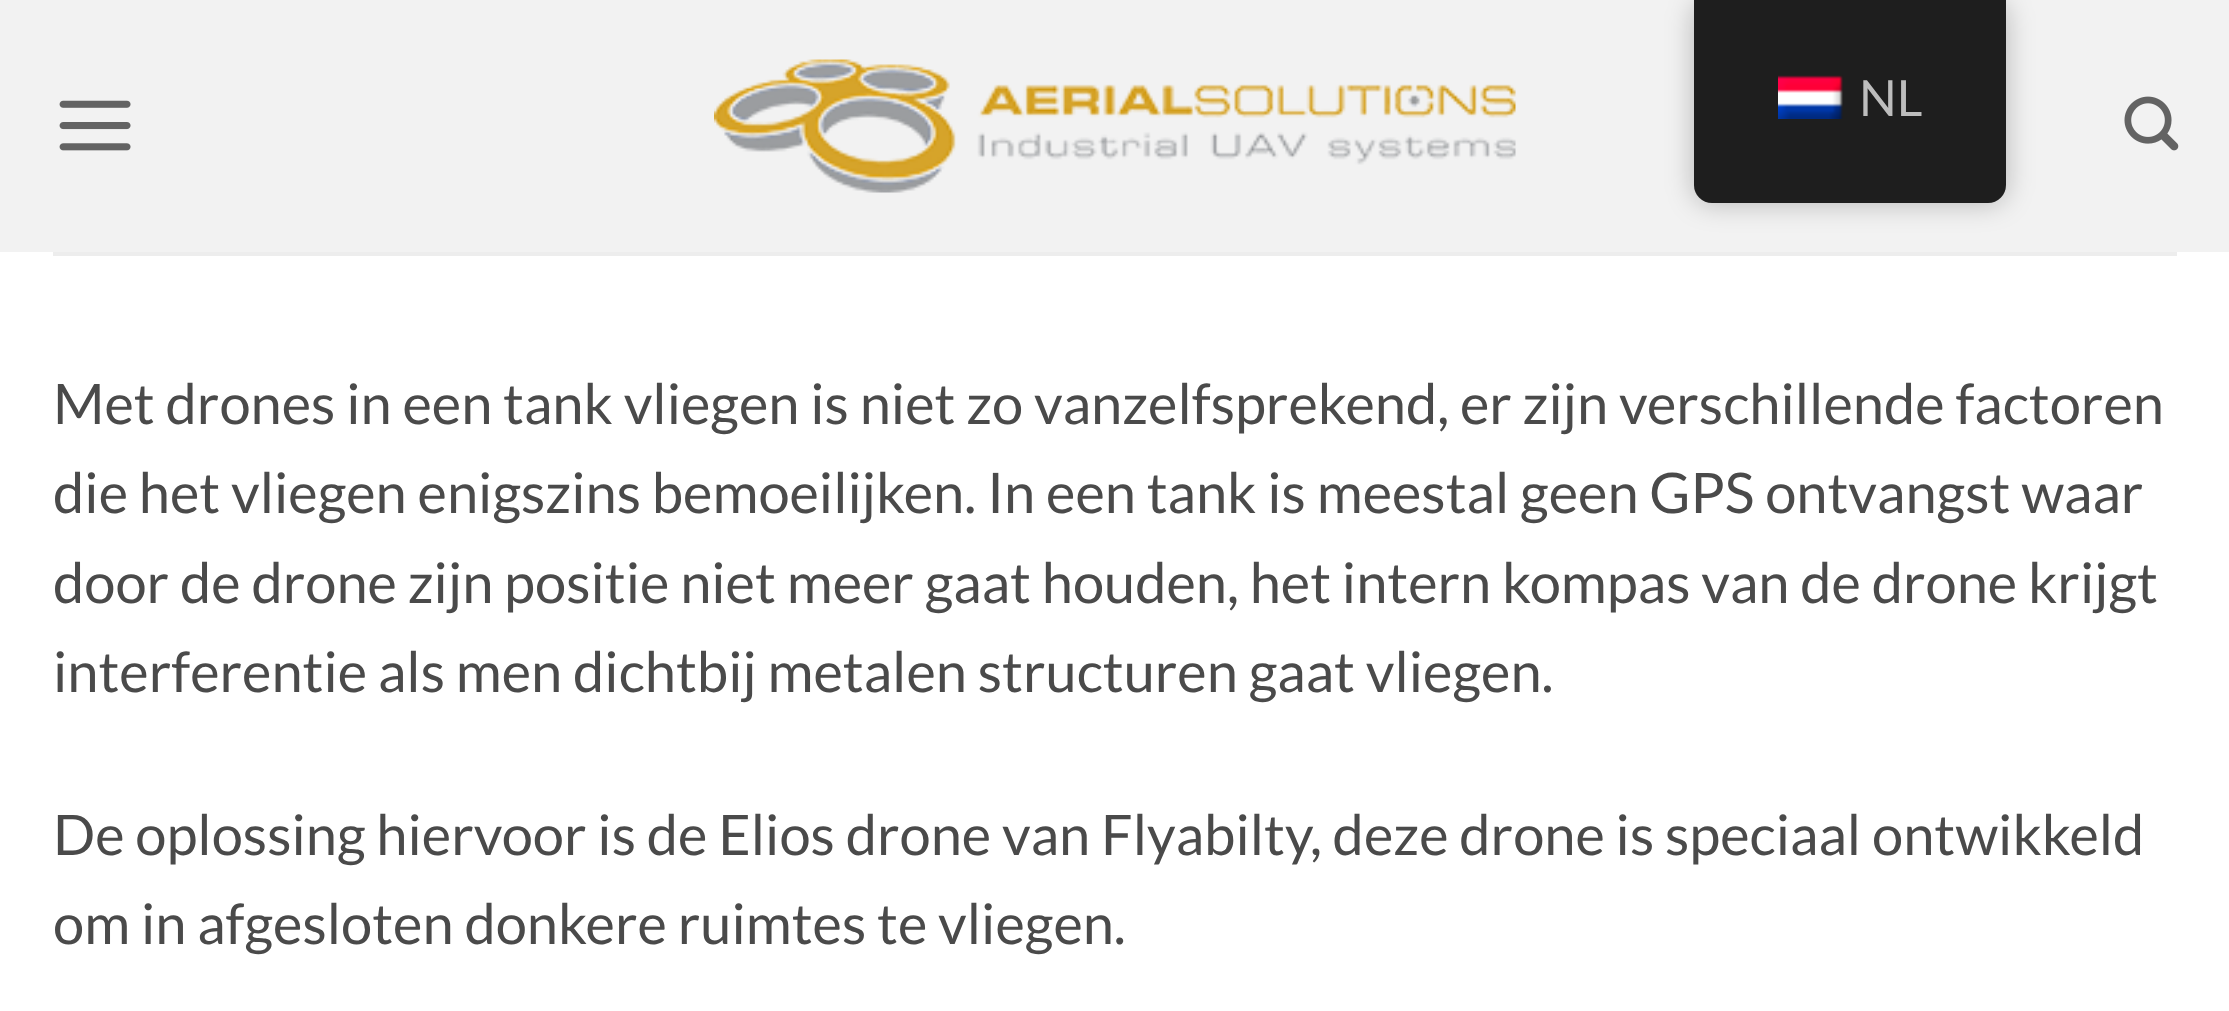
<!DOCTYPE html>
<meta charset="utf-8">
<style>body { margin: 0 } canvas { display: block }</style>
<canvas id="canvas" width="2229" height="1011"></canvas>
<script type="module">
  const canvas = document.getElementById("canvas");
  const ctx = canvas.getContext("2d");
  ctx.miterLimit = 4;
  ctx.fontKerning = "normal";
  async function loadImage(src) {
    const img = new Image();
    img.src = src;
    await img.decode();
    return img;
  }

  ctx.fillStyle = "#ffffff";
  ctx.fillRect(0, 0, 2229, 1011);
  ctx.fillStyle = "#f2f2f2";
  ctx.fillRect(0, 0, 2229, 252);
  ctx.fillStyle = "rgba(0, 0, 0, 0.25)";
  ctx.filter = "blur(14px)";
  ctx.beginPath();
  ctx.roundRect(1694, 0, 312, 203, 18);
  ctx.fill();
  ctx.filter = "none";
  ctx.fillStyle = "#1e1e1e";
  ctx.beginPath();
  ctx.roundRect(1694, 0, 312, 203, [0, 0, 18, 18]);
  ctx.fill();
  ctx.drawImage(await loadImage("img1.png"), 1778, 75, 65, 44);
  ctx.font = "50px Lato";
  ctx.fillStyle = "#bdbdbd";
  ctx.fillText("NL", 1859, 116);
  ctx.drawImage(await loadImage("img2.png"), 59, 100, 72, 51);
  ctx.drawImage(await loadImage("img3.png"), 714, 59, 802, 134);
  ctx.drawImage(await loadImage("img4.png"), 2124, 96, 55, 55);
  ctx.fillStyle = "#ededed";
  ctx.fillRect(53, 252, 2124, 4);
  ctx.font = "56px Lato";
  ctx.fillStyle = "#4a4a4a";
  ctx.fillText("Met drones in een tank vliegen is niet zo vanzelfsprekend, er zijn verschillende factoren", 53, 424);
  ctx.fillText("die het vliegen enigszins bemoeilijken. In een tank is meestal geen GPS ontvangst waar", 53, 513);
  ctx.fillText("door de drone zijn positie niet meer gaat houden, het intern kompas van de drone krijgt", 53, 603);
  ctx.fillText("interferentie als men dichtbij metalen structuren gaat vliegen.", 53, 692);
  ctx.fillText("De oplossing hiervoor is de Elios drone van Flyabilty, deze drone is speciaal ontwikkeld", 53, 855);
  ctx.fillText("om in afgesloten donkere ruimtes te vliegen.", 53, 944);
</script>
